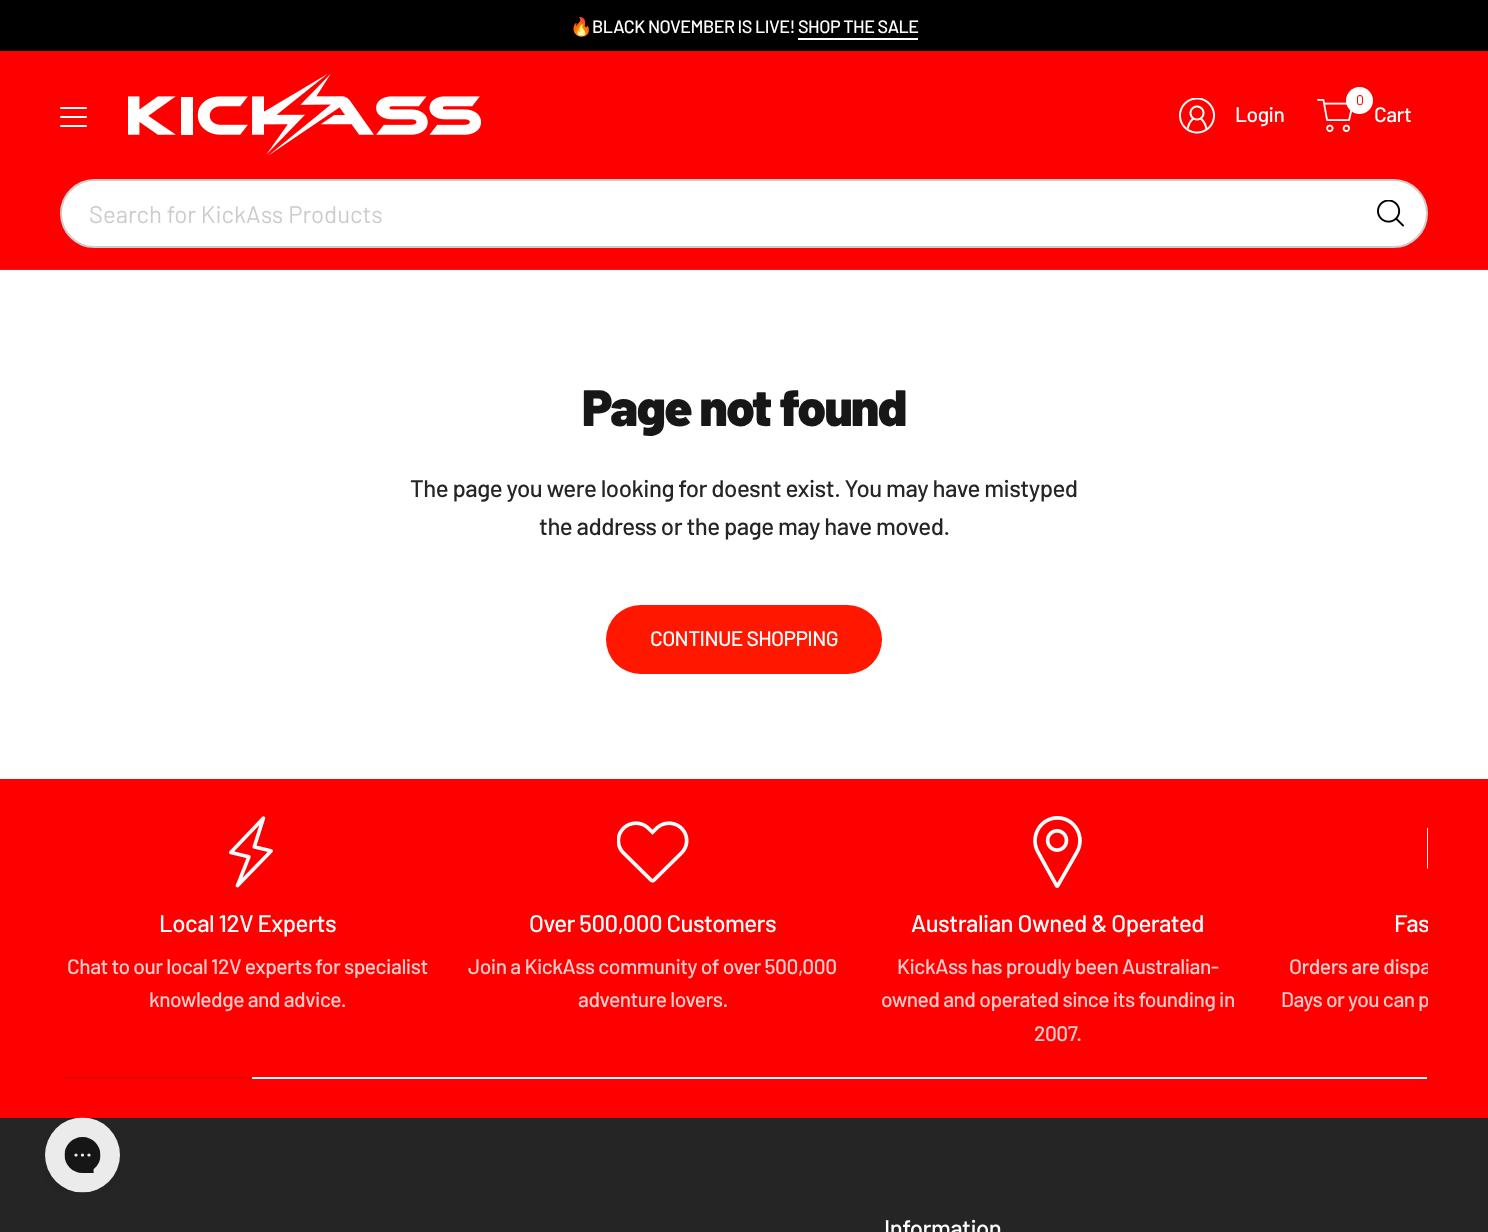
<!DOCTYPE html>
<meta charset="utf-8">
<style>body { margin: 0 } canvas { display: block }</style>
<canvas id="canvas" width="1488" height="1232"></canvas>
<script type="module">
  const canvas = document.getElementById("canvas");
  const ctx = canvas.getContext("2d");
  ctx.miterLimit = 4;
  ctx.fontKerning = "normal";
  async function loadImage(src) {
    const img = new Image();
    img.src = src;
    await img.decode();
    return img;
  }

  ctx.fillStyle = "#ffffff";
  ctx.fillRect(0, 0, 1488, 1232);
  ctx.fillStyle = "#000000";
  ctx.fillRect(0, 0, 1488, 51);
  ctx.letterSpacing = "-0.48px";
  ctx.font = "18px Noto Color Emoji";
  ctx.fillStyle = "#ffffff";
  ctx.fillText("🔥", 570, 33);
  ctx.font = "500 18px Barlow";
  ctx.fillText("BLACK NOVEMBER IS LIVE! SHOP THE SALE", 592, 33);
  ctx.fillRect(798, 38, 120, 2);
  ctx.fillStyle = "#ff0000";
  ctx.fillRect(0, 51, 1488, 218);
  ctx.fillStyle = "#ff1a1a";
  ctx.fillRect(0, 269, 1488, 1);
  ctx.fillStyle = "#ffffff";
  ctx.beginPath();
  ctx.roundRect(60, 107, 27, 2, 1);
  ctx.fill();
  ctx.beginPath();
  ctx.roundRect(60, 116, 27, 2, 1);
  ctx.fill();
  ctx.beginPath();
  ctx.roundRect(60, 125, 27, 2, 1);
  ctx.fill();
  ctx.drawImage(await loadImage("img1.png"), 128, 74, 354, 82);
  ctx.drawImage(await loadImage("img2.png"), 1179, 98, 36, 36);
  ctx.font = "500 21px Barlow";
  ctx.fillText("Login", 1235, 122);
  ctx.drawImage(await loadImage("img3.png"), 1317, 99, 35, 33);
  ctx.beginPath();
  ctx.arc(1359.5, 100.5, 13.5, 0, Math.PI * 2);
  ctx.fill();
  ctx.font = "14px Barlow";
  ctx.fillStyle = "#ff0000";
  ctx.fillText("0", 1356, 105);
  ctx.font = "500 21px Barlow";
  ctx.fillStyle = "#ffffff";
  ctx.fillText("Cart", 1374, 122);
  ctx.beginPath();
  ctx.roundRect(61, 180, 1366, 67, 33.5);
  ctx.fill();
  ctx.strokeStyle = "#cccccc";
  ctx.lineWidth = 2;
  ctx.stroke();
  ctx.letterSpacing = "0px";
  ctx.font = "24px Barlow";
  ctx.fillStyle = "#cccccc";
  ctx.fillText("Search for KickAss Products", 89, 223);
  ctx.drawImage(await loadImage("img4.png"), 1377, 200, 27, 27);
  ctx.letterSpacing = "-1.5px";
  ctx.font = "900 51px Barlow";
  ctx.fillStyle = "#171717";
  ctx.fillText("Page not found", 582, 426);
  ctx.letterSpacing = "-0.48px";
  ctx.font = "500 24px Barlow";
  ctx.fillStyle = "#252525";
  ctx.fillText("The page you were looking for doesnt exist. You may have mistyped", 410, 497);
  ctx.fillText("the address or the page may have moved.", 539, 535);
  ctx.fillStyle = "#ff1700";
  ctx.beginPath();
  ctx.roundRect(606, 605, 276, 69, 34.5);
  ctx.fill();
  ctx.letterSpacing = "-0.6px";
  ctx.font = "500 21px Barlow";
  ctx.fillStyle = "#ffffff";
  ctx.fillText("CONTINUE SHOPPING", 650, 646);
  ctx.fillStyle = "#ff0000";
  ctx.fillRect(0, 779, 1488, 339);
  ctx.drawImage(await loadImage("img5.png"), 229, 816, 44, 72);
  ctx.letterSpacing = "-0.48px";
  ctx.font = "500 24px Barlow";
  ctx.fillStyle = "#ffffff";
  ctx.fillText("Local 12V Experts", 159, 932);
  ctx.font = "500 21px Barlow";
  ctx.fillStyle = "#ffcccc";
  ctx.fillText("Chat to our local 12V experts for specialist", 67, 974);
  ctx.fillText("knowledge and advice.", 149, 1007);
  ctx.drawImage(await loadImage("img6.png"), 617, 821, 72, 62);
  ctx.font = "500 24px Barlow";
  ctx.fillStyle = "#ffffff";
  ctx.fillText("Over 500,000 Customers", 529, 932);
  ctx.font = "500 21px Barlow";
  ctx.fillStyle = "#ffcccc";
  ctx.fillText("Join a KickAss community of over 500,000", 468, 974);
  ctx.fillText("adventure lovers.", 578, 1007);
  ctx.drawImage(await loadImage("img7.png"), 1033, 816, 49, 72);
  ctx.font = "500 24px Barlow";
  ctx.fillStyle = "#ffffff";
  ctx.fillText("Australian Owned & Operated", 911, 932);
  ctx.font = "500 21px Barlow";
  ctx.fillStyle = "#ffcccc";
  ctx.fillText("KickAss has proudly been Australian-", 897, 974);
  ctx.fillText("owned and operated since its founding in", 881, 1007);
  ctx.fillText("2007.", 1034, 1041);
  ctx.drawImage(await loadImage("img8.png"), 1427, 827, 1, 42);
  ctx.save();
  ctx.beginPath();
  ctx.rect(60, 816, 1368, 234);
  ctx.clip();
  ctx.font = "500 24px Barlow";
  ctx.fillStyle = "#ffffff";
  ctx.fillText("Fas", 1394, 932);
  ctx.font = "500 21px Barlow";
  ctx.fillStyle = "#ffcccc";
  ctx.fillText("Orders are dispa", 1289, 974);
  ctx.restore();
  ctx.fillText("Days or you can", 1281, 1007);
  ctx.save();
  ctx.beginPath();
  ctx.rect(60, 816, 1368, 234);
  ctx.clip();
  ctx.fillText("p", 1418, 1007);
  ctx.restore();
  ctx.fillStyle = "#e90404";
  ctx.fillRect(62, 1077, 190, 2);
  ctx.fillStyle = "#ffffff";
  ctx.fillRect(252, 1077, 1175, 2);
  ctx.fillStyle = "#252525";
  ctx.fillRect(0, 1118, 1488, 114);
  ctx.font = "500 24px Barlow";
  ctx.fillStyle = "#ffffff";
  ctx.fillText("Information", 884, 1237);
  ctx.drawImage(await loadImage("img9.png"), 45, 1117, 75, 76);
</script>
